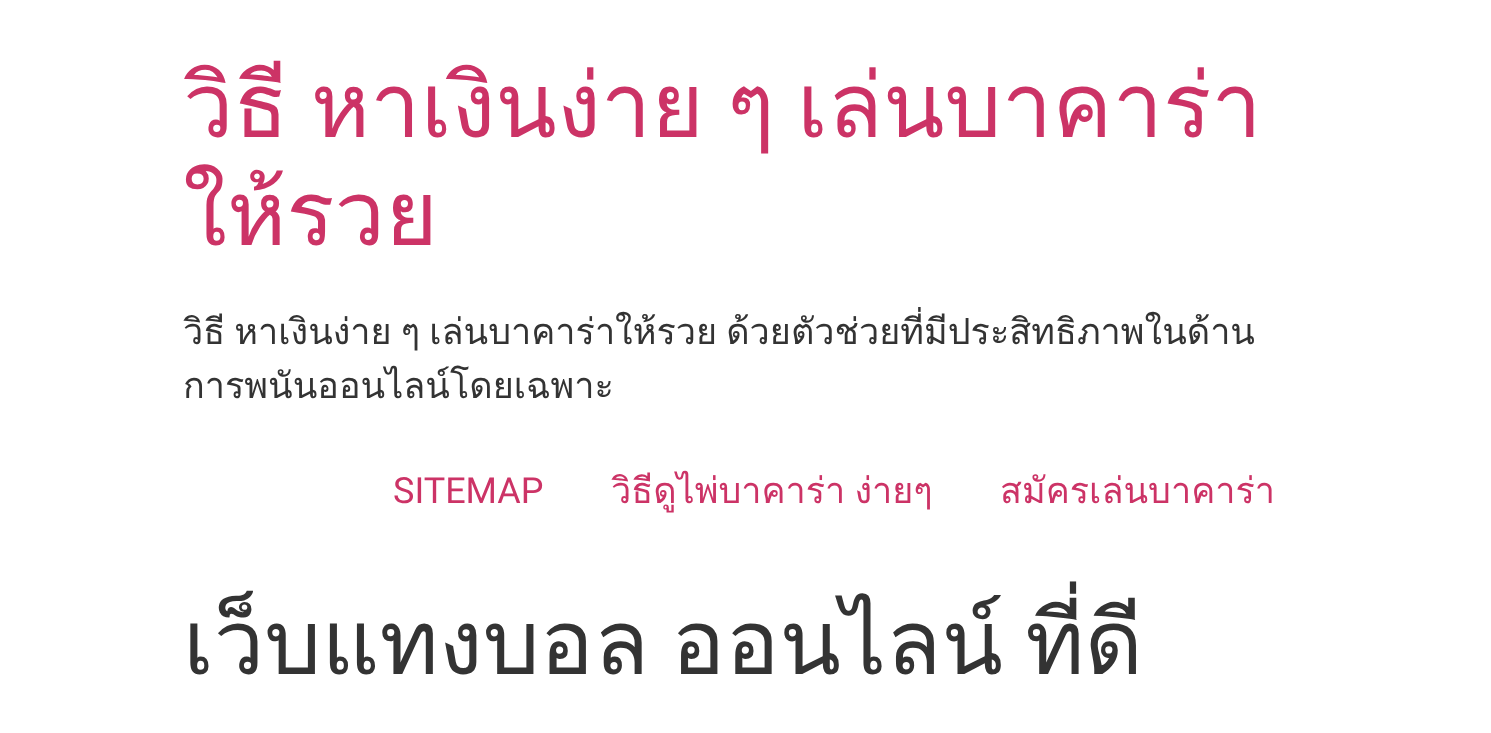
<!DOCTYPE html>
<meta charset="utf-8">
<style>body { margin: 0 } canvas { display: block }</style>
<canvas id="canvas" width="1491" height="733"></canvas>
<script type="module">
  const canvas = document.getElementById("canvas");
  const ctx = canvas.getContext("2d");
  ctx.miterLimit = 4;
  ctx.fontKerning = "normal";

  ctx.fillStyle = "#ffffff";
  ctx.fillRect(0, 0, 1491, 733);
  ctx.wordSpacing = "-8px";
  ctx.font = "90px Loma";
  ctx.fillStyle = "#cc3366";
  ctx.fillText("วิธี หาเงินง่าย ๆ เล่นบาคาร่า", 183, 137);
  ctx.wordSpacing = "0px";
  ctx.fillText("ให้รวย", 183, 245);
  ctx.wordSpacing = "-3px";
  ctx.font = "36px Loma";
  ctx.fillStyle = "#333333";
  ctx.fillText("วิธี หาเงินง่าย ๆ เล่นบาคาร่าให้รวย ด้วยตัวช่วยที่มีประสิทธิภาพในด้าน", 183, 344);
  ctx.wordSpacing = "0px";
  ctx.fillText("การพนันออนไลน์โดยเฉพาะ", 183, 398);
  ctx.font = "36px Roboto";
  ctx.fillStyle = "#cc3366";
  ctx.fillText("SITEMAP", 393, 503);
  ctx.wordSpacing = "-3px";
  ctx.font = "36px Loma";
  ctx.fillText("วิธีดูไพ่บาคาร่า ง่ายๆ", 611, 503);
  ctx.wordSpacing = "0px";
  ctx.fillText("สมัครเล่นบาคาร่า", 1000, 503);
  ctx.wordSpacing = "-8px";
  ctx.font = "90px Loma";
  ctx.fillStyle = "#333333";
  ctx.fillText("เว็บแทงบอล ออนไลน์ ที่ดี", 183, 674);
</script>
